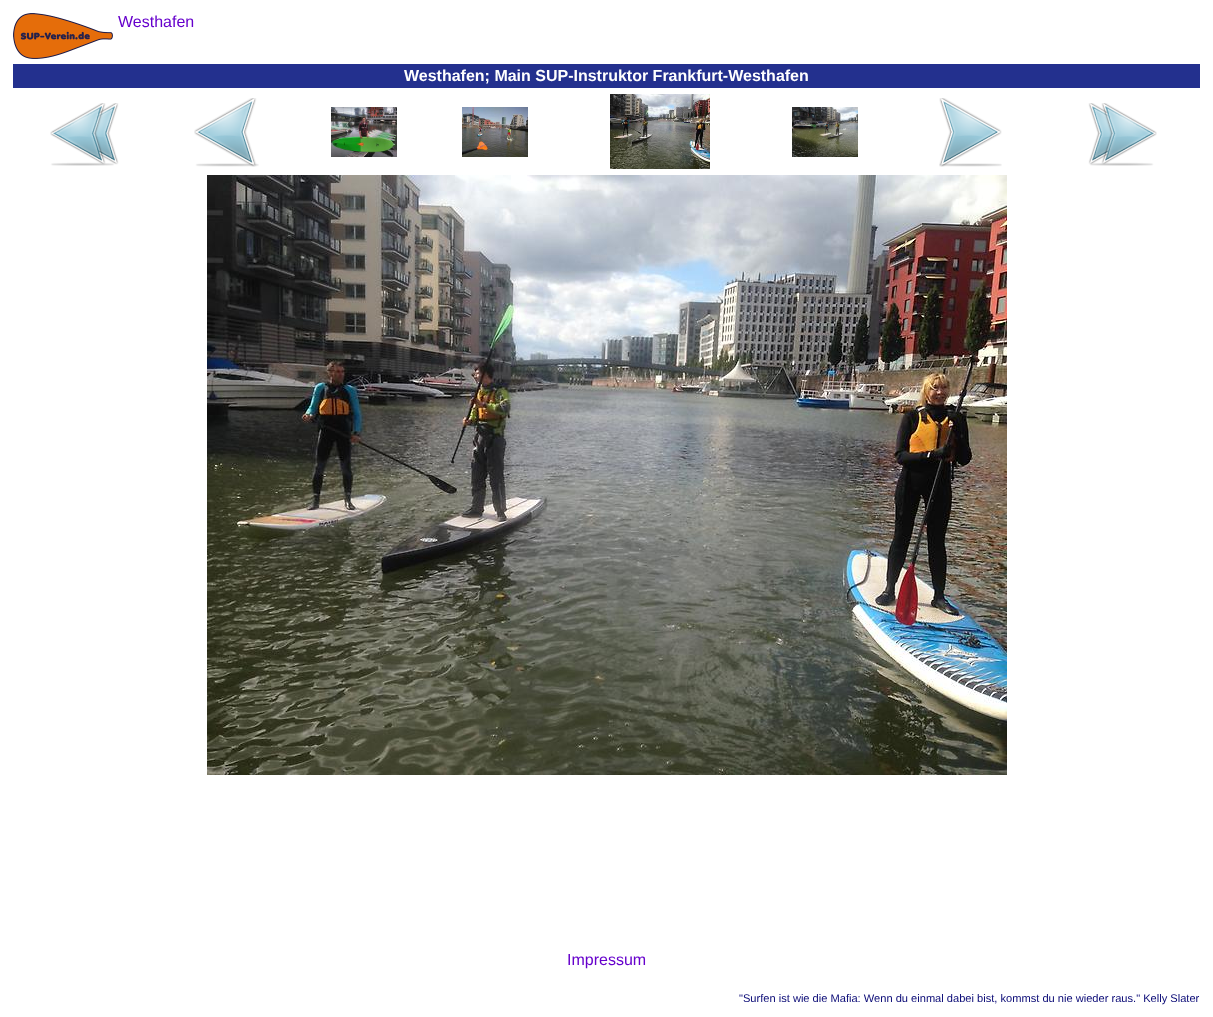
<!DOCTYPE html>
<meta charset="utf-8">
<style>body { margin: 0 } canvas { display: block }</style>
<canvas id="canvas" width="1213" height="1017"></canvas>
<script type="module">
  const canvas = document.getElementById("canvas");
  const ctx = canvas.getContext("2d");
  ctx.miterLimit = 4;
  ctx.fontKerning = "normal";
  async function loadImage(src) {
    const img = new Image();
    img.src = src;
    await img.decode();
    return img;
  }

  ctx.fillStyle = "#ffffff";
  ctx.fillRect(0, 0, 1213, 1017);
  ctx.drawImage(await loadImage("img1.png"), 13, 13, 100, 46);
  ctx.font = "16px Liberation Sans";
  ctx.fillStyle = "#6600cc";
  ctx.fillText("Westhafen", 118, 27);
  ctx.fillStyle = "#23308e";
  ctx.fillRect(13, 64, 1187, 24);
  ctx.font = "bold 16px Liberation Sans";
  ctx.fillStyle = "#ffffff";
  ctx.fillText("Westhafen; Main SUP-Instruktor Frankfurt-Westhafen", 404, 81);
  ctx.drawImage(await loadImage("img2.png"), 50, 103, 69, 63);
  ctx.drawImage(await loadImage("img3.png"), 194, 98, 65, 69);
  ctx.drawImage(await loadImage("img4.png"), 331, 107, 66, 50);
  ctx.drawImage(await loadImage("img5.png"), 462, 107, 66, 50);
  ctx.drawImage(await loadImage("img6.png"), 610, 94, 100, 75);
  ctx.drawImage(await loadImage("img7.png"), 792, 107, 66, 50);
  ctx.drawImage(await loadImage("img8.png"), 939, 98, 63, 69);
  ctx.drawImage(await loadImage("img9.png"), 1088, 103, 69, 63);
  ctx.drawImage(await loadImage("img10.png"), 207, 175, 800, 600);
  ctx.font = "16px Liberation Sans";
  ctx.fillStyle = "#6600cc";
  ctx.fillText("Impressum", 567, 965);
  ctx.font = "11.1px Liberation Sans";
  ctx.fillStyle = "#080875";
  ctx.fillText("\"Surfen ist wie die Mafia: Wenn du einmal dabei bist, kommst du nie wieder raus.\" Kelly Slater", 739, 1002);
</script>
